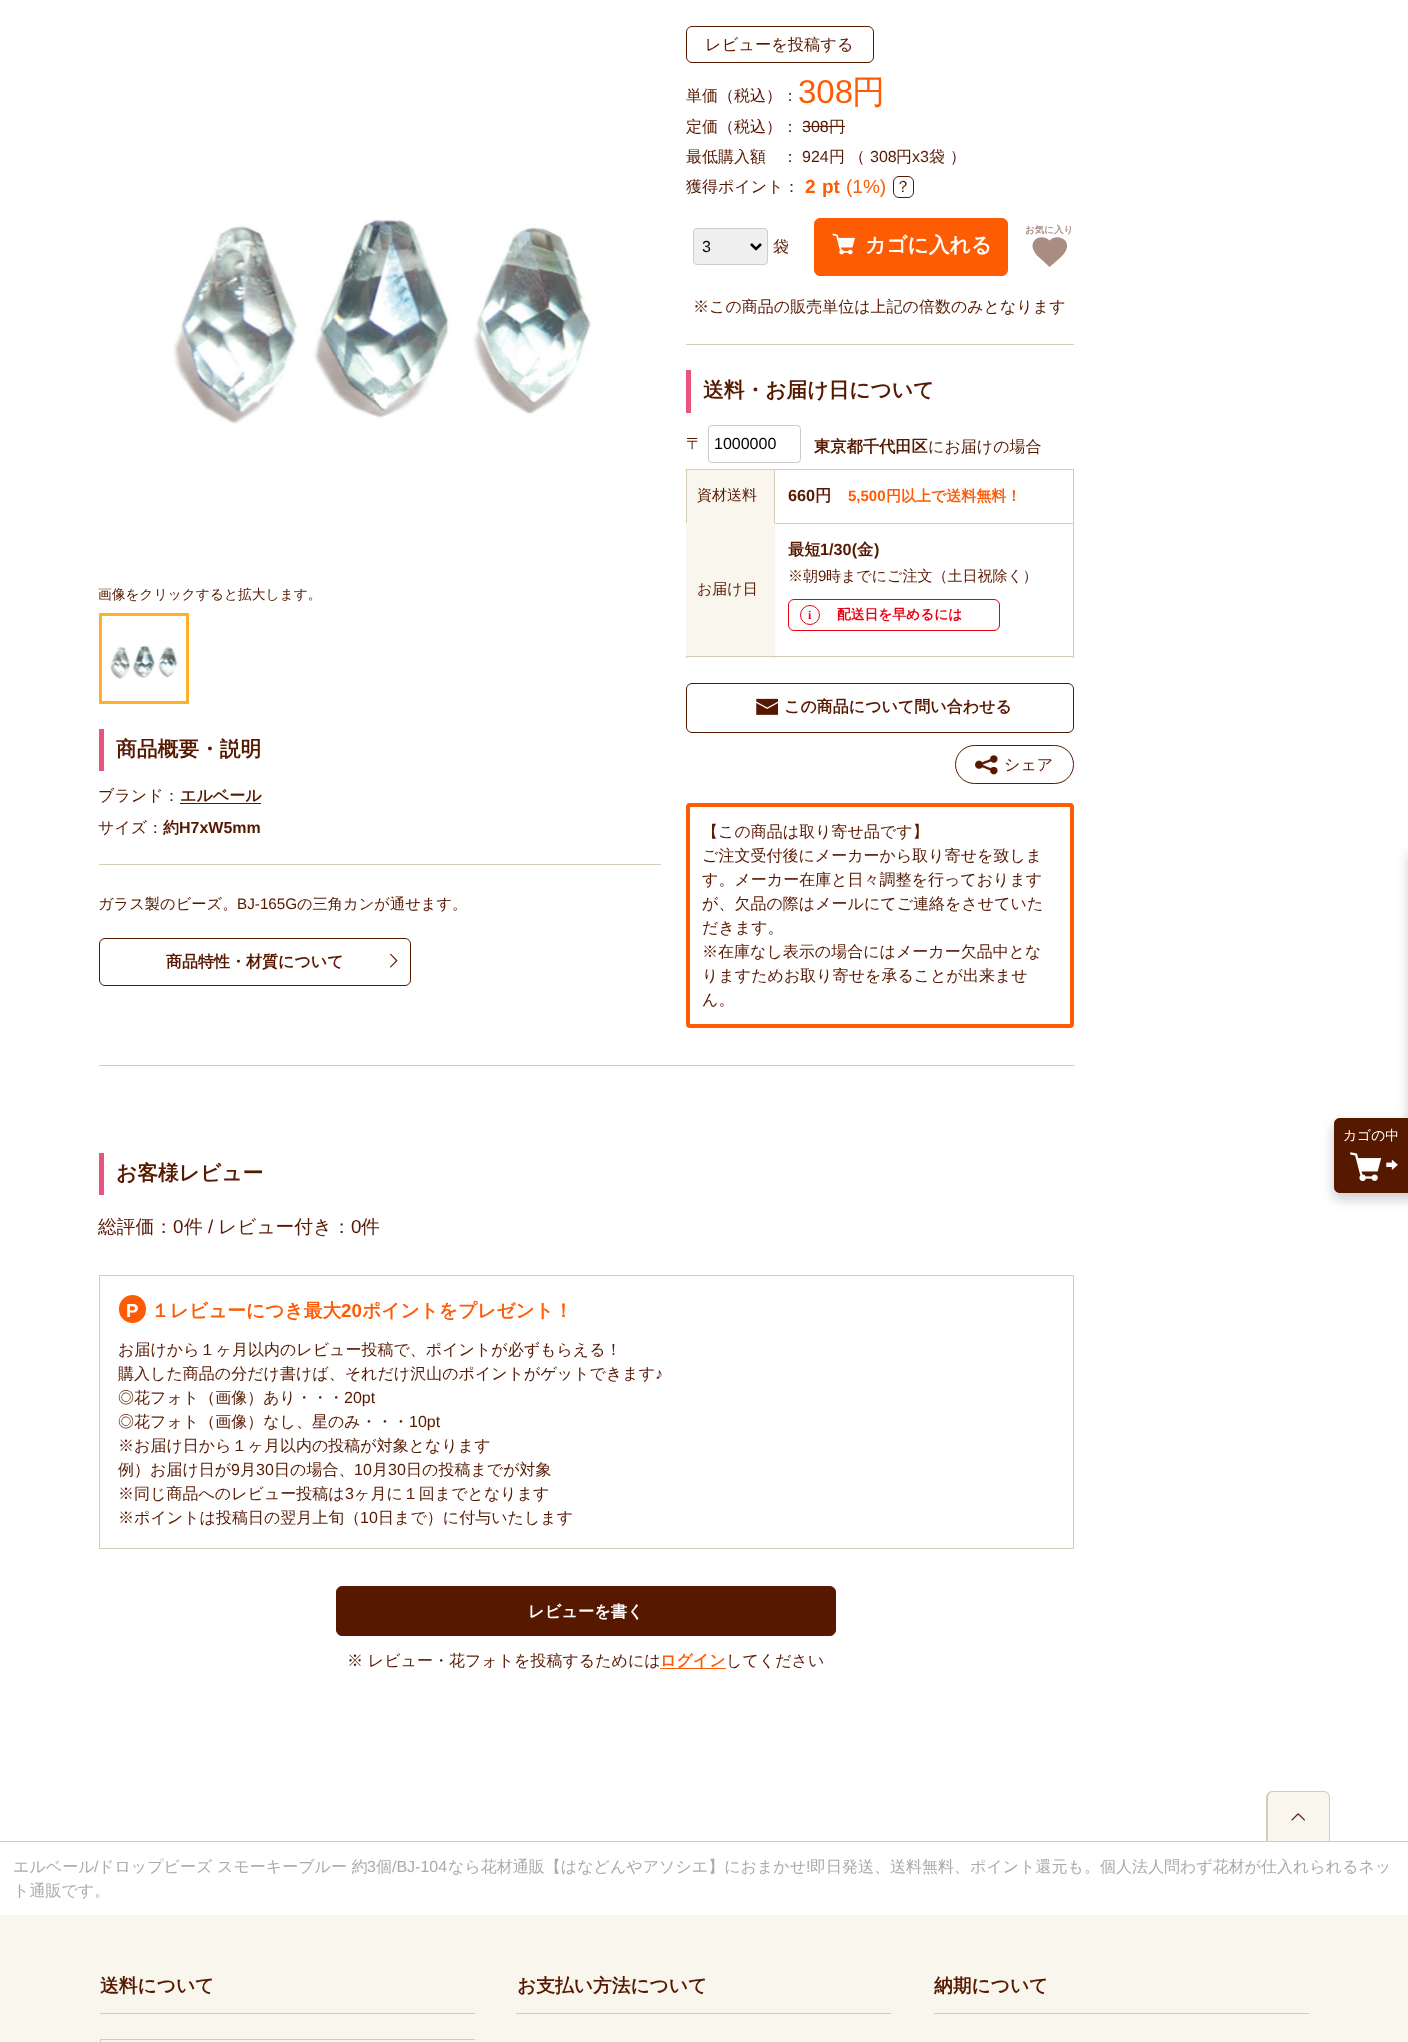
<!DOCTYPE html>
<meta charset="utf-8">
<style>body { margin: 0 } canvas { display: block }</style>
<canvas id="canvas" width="1408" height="2042"></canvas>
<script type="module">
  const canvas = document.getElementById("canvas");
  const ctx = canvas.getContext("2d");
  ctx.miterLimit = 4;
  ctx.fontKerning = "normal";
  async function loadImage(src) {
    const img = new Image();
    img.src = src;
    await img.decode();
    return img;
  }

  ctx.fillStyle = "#ffffff";
  ctx.fillRect(0, 0, 1408, 2042);
  ctx.fillStyle = "#d5cdb3";
  ctx.fillRect(99, 1065, 975, 1);
  ctx.drawImage(await loadImage("img1.png"), 173, 219, 419, 205);
  ctx.font = "500 13.75px WenQuanYi Zen Hei";
  ctx.fillStyle = "#571800";
  ctx.fillText("画像をクリックすると拡大します。", 98, 599);
  ctx.drawImage(await loadImage("img2.png"), 110, 645, 68, 34);
  ctx.strokeStyle = "#ffb12a";
  ctx.lineWidth = 3;
  ctx.strokeRect(100.5, 614.5, 87, 88);
  ctx.fillStyle = "#e8547d";
  ctx.fillRect(99, 729, 5, 42);
  ctx.font = "bold 20.75px WenQuanYi Zen Hei";
  ctx.fillStyle = "#571800";
  ctx.fillText("商品概要・説明", 116, 756);
  ctx.font = "500 16px WenQuanYi Zen Hei";
  ctx.fillText("ブランド：", 98, 801);
  ctx.font = "bold 16px WenQuanYi Zen Hei";
  ctx.fillText("エルベール", 180, 801);
  ctx.fillRect(180, 803, 81, 1);
  ctx.fillStyle = "#d5cdb3";
  ctx.fillRect(99, 864, 562, 1);
  ctx.font = "500 16px WenQuanYi Zen Hei";
  ctx.fillStyle = "#571800";
  ctx.fillText("サイズ：", 98, 833);
  ctx.font = "bold 16px WenQuanYi Zen Hei";
  ctx.fillText("約", 163, 833);
  ctx.font = "bold 16px Liberation Sans";
  ctx.fillText("H7xW5mm", 179, 833);
  ctx.font = "500 15.25px WenQuanYi Zen Hei";
  ctx.fillText("ガラス製のビーズ。", 98, 909);
  ctx.font = "15.25px Liberation Sans";
  ctx.fillText("BJ-165G", 237, 909);
  ctx.font = "500 15.25px WenQuanYi Zen Hei";
  ctx.fillText("の三角カンが通せます。", 297, 909);
  ctx.beginPath();
  ctx.roundRect(99.5, 938.5, 311, 47, 5.5);
  ctx.strokeStyle = "#571800";
  ctx.lineWidth = 1;
  ctx.stroke();
  ctx.font = "bold 16px WenQuanYi Zen Hei";
  ctx.fillText("商品特性・材質について", 166, 967);
  ctx.drawImage(await loadImage("img3.png"), 390, 953, 8, 15);
  ctx.beginPath();
  ctx.roundRect(686.5, 26.5, 187, 36, 5.5);
  ctx.stroke();
  ctx.font = "500 16.25px WenQuanYi Zen Hei";
  ctx.fillText("レビューを投稿する", 705, 50);
  ctx.font = "500 16px WenQuanYi Zen Hei";
  ctx.fillText("単価（税込）：", 686, 101);
  ctx.font = "33px Liberation Sans";
  ctx.fillStyle = "#fd5c04";
  ctx.fillText("308", 798, 103);
  ctx.font = "500 33px WenQuanYi Zen Hei";
  ctx.fillText("円", 852, 103);
  ctx.font = "500 16px WenQuanYi Zen Hei";
  ctx.fillStyle = "#571800";
  ctx.fillText("定価（税込）：", 686, 132);
  ctx.font = "16px Liberation Sans";
  ctx.fillText("308", 802, 132);
  ctx.fillRect(803, 126, 26, 1);
  ctx.fillRect(829, 126, 16, 1);
  ctx.font = "500 16px WenQuanYi Zen Hei";
  ctx.fillText("円", 829, 132);
  ctx.fillText("最低購入額　：", 686, 162);
  ctx.font = "16px Liberation Sans";
  ctx.fillText("924", 802, 162);
  ctx.font = "500 16px WenQuanYi Zen Hei";
  ctx.fillText("円", 829, 162);
  ctx.fillText("（", 849, 162);
  ctx.font = "16px Liberation Sans";
  ctx.fillText("308", 870, 162);
  ctx.font = "500 16px WenQuanYi Zen Hei";
  ctx.fillText("円", 896, 162);
  ctx.font = "16px Liberation Sans";
  ctx.fillText("x3", 912, 162);
  ctx.font = "500 16px WenQuanYi Zen Hei";
  ctx.fillText("袋", 929, 162);
  ctx.fillText("）", 950, 162);
  ctx.fillText("獲得ポイント：", 686, 192);
  ctx.font = "bold 19px Liberation Sans";
  ctx.fillStyle = "#fd5c04";
  ctx.fillText("2", 805, 193);
  ctx.fillText("pt", 822, 193);
  ctx.font = "19px Liberation Sans";
  ctx.fillText("(1%)", 846, 193);
  ctx.beginPath();
  ctx.roundRect(893.5, 176.5, 20, 21, 5.5);
  ctx.stroke();
  ctx.font = "500 16px WenQuanYi Zen Hei";
  ctx.fillStyle = "#571800";
  ctx.fillText("？", 895, 192);
  ctx.fillStyle = "#d5cdb3";
  ctx.fillRect(686, 344, 388, 1);
  ctx.font = "bold 9.5px WenQuanYi Zen Hei";
  ctx.fillStyle = "#ab8c80";
  ctx.fillText("お気に入り", 1025, 233);
  ctx.beginPath();
  ctx.moveTo(1066.5, 249);
  ctx.bezierCurveTo(1064.5, 254.5, 1060.5, 257.5, 1056.5, 261);
  ctx.lineTo(1049.5, 267);
  ctx.lineTo(1041.5, 259.5);
  ctx.bezierCurveTo(1038.5, 257, 1035.5, 254.5, 1034, 251);
  ctx.bezierCurveTo(1028, 240, 1041.5, 232.5, 1049.5, 240.5);
  ctx.bezierCurveTo(1057, 233, 1070, 239, 1066.5, 249);
  ctx.closePath();
  ctx.fill();
  ctx.fillStyle = "#efefef";
  ctx.beginPath();
  ctx.roundRect(693.5, 228.5, 74, 36, 3.5);
  ctx.fill();
  ctx.strokeStyle = "#cccccc";
  ctx.stroke();
  ctx.beginPath();
  ctx.moveTo(751, 244);
  ctx.lineTo(756, 249);
  ctx.lineTo(761, 244);
  ctx.strokeStyle = "#000000";
  ctx.lineWidth = 2.5;
  ctx.stroke();
  ctx.font = "16px Liberation Sans";
  ctx.fillStyle = "#000000";
  ctx.fillText("3", 702, 252);
  ctx.font = "500 16px WenQuanYi Zen Hei";
  ctx.fillStyle = "#571800";
  ctx.fillText("袋", 773, 252);
  ctx.fillStyle = "#fd5c04";
  ctx.beginPath();
  ctx.roundRect(814.5, 218.5, 193, 57, 5.5);
  ctx.fill();
  ctx.strokeStyle = "#fd5c04";
  ctx.lineWidth = 1;
  ctx.stroke();
  ctx.drawImage(await loadImage("img4.png"), 832, 233, 23, 22);
  ctx.font = "bold 20.75px WenQuanYi Zen Hei";
  ctx.fillStyle = "#ffffff";
  ctx.fillText("カゴに入れる", 865, 252);
  ctx.font = "500 16px WenQuanYi Zen Hei";
  ctx.fillStyle = "#571800";
  ctx.fillText("※この商品の販売単位は上記の倍数のみとなります", 693, 312);
  ctx.fillStyle = "#e8547d";
  ctx.fillRect(686, 370, 5, 43);
  ctx.font = "bold 20.75px WenQuanYi Zen Hei";
  ctx.fillStyle = "#571800";
  ctx.fillText("送料・お届け日について", 703, 397);
  ctx.font = "500 16px WenQuanYi Zen Hei";
  ctx.fillText("〒", 686, 449);
  ctx.beginPath();
  ctx.roundRect(708.5, 425.5, 92, 37, 3.5);
  ctx.strokeStyle = "#cccccc";
  ctx.stroke();
  ctx.font = "16px Liberation Sans";
  ctx.fillStyle = "#000000";
  ctx.fillText("1000000", 714, 449);
  ctx.font = "bold 16.25px WenQuanYi Zen Hei";
  ctx.fillStyle = "#571800";
  ctx.fillText("東京都千代田区", 814, 452);
  ctx.font = "500 16px WenQuanYi Zen Hei";
  ctx.fillText("にお届けの場合", 928, 452);
  ctx.fillStyle = "#d5cdb3";
  ctx.fillRect(686, 469, 388, 1);
  ctx.fillRect(686, 656, 388, 1);
  ctx.fillRect(686, 469, 1, 189);
  ctx.fillStyle = "#f8f6ed";
  ctx.fillRect(687, 470, 87, 53);
  ctx.fillStyle = "#d5cdb3";
  ctx.fillRect(1073, 469, 1, 189);
  ctx.fillRect(774, 523, 300, 1);
  ctx.fillRect(774, 469, 1, 55);
  ctx.font = "500 15px WenQuanYi Zen Hei";
  ctx.fillStyle = "#571800";
  ctx.fillText("資材送料", 697, 500);
  ctx.font = "bold 16.25px Liberation Sans";
  ctx.fillText("660", 788, 501);
  ctx.font = "bold 16.25px WenQuanYi Zen Hei";
  ctx.fillText("円", 815, 501);
  ctx.font = "bold 15px Liberation Sans";
  ctx.fillStyle = "#fd5c04";
  ctx.fillText("5,500", 848, 501);
  ctx.font = "bold 15px WenQuanYi Zen Hei";
  ctx.fillText("円以上で送料無料！", 886, 501);
  ctx.fillStyle = "#d5cdb3";
  ctx.fillRect(774, 656, 1, 2);
  ctx.fillStyle = "#f8f6ed";
  ctx.fillRect(686, 523, 89, 133);
  ctx.font = "500 15px WenQuanYi Zen Hei";
  ctx.fillStyle = "#571800";
  ctx.fillText("お届け日", 697, 594);
  ctx.font = "bold 16.25px WenQuanYi Zen Hei";
  ctx.fillText("最短", 788, 555);
  ctx.font = "bold 16.25px Liberation Sans";
  ctx.fillText("1/30(", 820, 555);
  ctx.font = "bold 16.25px WenQuanYi Zen Hei";
  ctx.fillText("金", 857, 555);
  ctx.font = "bold 16.25px Liberation Sans";
  ctx.fillText(")", 874, 555);
  ctx.font = "500 15px WenQuanYi Zen Hei";
  ctx.fillText("※朝", 788, 581);
  ctx.font = "15px Liberation Sans";
  ctx.fillText("9", 818, 581);
  ctx.font = "500 15px WenQuanYi Zen Hei";
  ctx.fillText("時までにご注文（土日祝除く）", 826, 581);
  ctx.beginPath();
  ctx.roundRect(788.5, 599.5, 211, 31, 5.5);
  ctx.strokeStyle = "#e60012";
  ctx.stroke();
  ctx.beginPath();
  ctx.arc(810, 615, 9.5, 0, Math.PI * 2);
  ctx.stroke();
  ctx.font = "bold 12px Liberation Serif";
  ctx.fillStyle = "#e60012";
  ctx.fillText("i", 808, 619);
  ctx.font = "bold 13.75px WenQuanYi Zen Hei";
  ctx.fillText("配送日を早めるには", 837, 619);
  ctx.beginPath();
  ctx.roundRect(686.5, 683.5, 387, 49, 5.5);
  ctx.strokeStyle = "#571800";
  ctx.stroke();
  ctx.drawImage(await loadImage("img5.png"), 756, 698, 23, 17);
  ctx.font = "bold 16px WenQuanYi Zen Hei";
  ctx.fillStyle = "#571800";
  ctx.fillText("この商品について問い合わせる", 784, 712);
  ctx.beginPath();
  ctx.roundRect(955.5, 745.5, 118, 38, 19);
  ctx.stroke();
  ctx.drawImage(await loadImage("img6.png"), 975, 755, 23, 20);
  ctx.font = "500 16px WenQuanYi Zen Hei";
  ctx.fillText("シェア", 1004, 770);
  ctx.beginPath();
  ctx.roundRect(688, 805, 384, 221, 2);
  ctx.strokeStyle = "#fd5c04";
  ctx.lineWidth = 4;
  ctx.stroke();
  ctx.fillText("【この商品は取り寄せ品です】", 702, 837);
  ctx.fillText("ご注文受付後にメーカーから取り寄せを致しま", 702, 861);
  ctx.fillText("す。メーカー在庫と日々調整を行っております", 702, 885);
  ctx.fillText("が、欠品の際はメールにてご連絡をさせていた", 702, 909);
  ctx.fillText("だきます。", 702, 933);
  ctx.fillText("※在庫なし表示の場合にはメーカー欠品中とな", 702, 957);
  ctx.fillText("りますためお取り寄せを承ることが出来ませ", 702, 981);
  ctx.fillText("ん。", 702, 1005);
  ctx.fillStyle = "#e8547d";
  ctx.fillRect(99, 1153, 5, 42);
  ctx.font = "bold 20.75px WenQuanYi Zen Hei";
  ctx.fillStyle = "#571800";
  ctx.fillText("お客様レビュー", 116, 1180);
  ctx.font = "500 18.75px WenQuanYi Zen Hei";
  ctx.fillText("総評価：", 98, 1233);
  ctx.font = "18.75px Liberation Sans";
  ctx.fillText("0", 173, 1233);
  ctx.font = "500 18.75px WenQuanYi Zen Hei";
  ctx.fillText("件", 184, 1233);
  ctx.font = "18.75px Liberation Sans";
  ctx.fillText("/", 208, 1233);
  ctx.font = "500 18.75px WenQuanYi Zen Hei";
  ctx.fillText("レビュー付き：", 218, 1233);
  ctx.font = "18.75px Liberation Sans";
  ctx.fillText("0", 351, 1233);
  ctx.font = "500 18.75px WenQuanYi Zen Hei";
  ctx.fillText("件", 361, 1233);
  ctx.strokeStyle = "#d5cdb3";
  ctx.lineWidth = 1;
  ctx.strokeRect(99.5, 1275.5, 974, 273);
  ctx.fillStyle = "#fd5c04";
  ctx.beginPath();
  ctx.roundRect(119, 1295, 27, 28, 13.5);
  ctx.fill();
  ctx.font = "bold 18.75px Liberation Sans";
  ctx.fillStyle = "#ffffff";
  ctx.fillText("P", 126, 1317);
  ctx.font = "bold 18.75px WenQuanYi Zen Hei";
  ctx.fillStyle = "#fd5c04";
  ctx.fillText("１レビューにつき最大", 151, 1317);
  ctx.font = "bold 18.75px Liberation Sans";
  ctx.fillText("20", 341, 1317);
  ctx.font = "bold 18.75px WenQuanYi Zen Hei";
  ctx.fillText("ポイントをプレゼント！", 362, 1317);
  ctx.font = "500 16px WenQuanYi Zen Hei";
  ctx.fillStyle = "#571800";
  ctx.fillText("お届けから１ヶ月以内のレビュー投稿で、ポイントが必ずもらえる！", 118, 1355);
  ctx.fillText("購入した商品の分だけ書けば、それだけ沢山のポイントがゲットできます", 118, 1379);
  ctx.font = "16px Liberation Sans";
  ctx.fillText("♪", 655, 1379);
  ctx.font = "500 16px WenQuanYi Zen Hei";
  ctx.fillText("◎花フォト（画像）あり・・・", 118, 1403);
  ctx.font = "16px Liberation Sans";
  ctx.fillText("20pt", 344, 1403);
  ctx.font = "500 16px WenQuanYi Zen Hei";
  ctx.fillText("◎花フォト（画像）なし、星のみ・・・", 118, 1427);
  ctx.font = "16px Liberation Sans";
  ctx.fillText("10pt", 409, 1427);
  ctx.font = "500 16px WenQuanYi Zen Hei";
  ctx.fillText("※お届け日から１ヶ月以内の投稿が対象となります", 118, 1451);
  ctx.fillText("例）お届け日が", 118, 1475);
  ctx.font = "16px Liberation Sans";
  ctx.fillText("9", 231, 1475);
  ctx.font = "500 16px WenQuanYi Zen Hei";
  ctx.fillText("月", 240, 1475);
  ctx.font = "16px Liberation Sans";
  ctx.fillText("30", 256, 1475);
  ctx.font = "500 16px WenQuanYi Zen Hei";
  ctx.fillText("日の場合、", 274, 1475);
  ctx.font = "16px Liberation Sans";
  ctx.fillText("10", 354, 1475);
  ctx.font = "500 16px WenQuanYi Zen Hei";
  ctx.fillText("月", 372, 1475);
  ctx.font = "16px Liberation Sans";
  ctx.fillText("30", 388, 1475);
  ctx.font = "500 16px WenQuanYi Zen Hei";
  ctx.fillText("日の投稿までが対象", 406, 1475);
  ctx.fillText("※同じ商品へのレビュー投稿は", 118, 1499);
  ctx.font = "16px Liberation Sans";
  ctx.fillText("3", 345, 1499);
  ctx.font = "500 16px WenQuanYi Zen Hei";
  ctx.fillText("ヶ月に１回までとなります", 354, 1499);
  ctx.fillText("※ポイントは投稿日の翌月上旬（", 118, 1523);
  ctx.font = "16px Liberation Sans";
  ctx.fillText("10", 360, 1523);
  ctx.font = "500 16px WenQuanYi Zen Hei";
  ctx.fillText("日まで）に付与いたします", 378, 1523);
  ctx.beginPath();
  ctx.roundRect(336.5, 1586.5, 499, 49, 5.5);
  ctx.fill();
  ctx.strokeStyle = "#571800";
  ctx.stroke();
  ctx.font = "bold 16.25px WenQuanYi Zen Hei";
  ctx.fillStyle = "#ffffff";
  ctx.fillText("レビューを書く", 528, 1617);
  ctx.font = "500 16px WenQuanYi Zen Hei";
  ctx.fillStyle = "#571800";
  ctx.fillText("※ レビュー・花フォトを投稿するためには", 347, 1666);
  ctx.fillStyle = "#fd5c04";
  ctx.fillRect(660, 1668, 66, 1);
  ctx.font = "bold 16px WenQuanYi Zen Hei";
  ctx.fillText("ログイン", 660, 1666);
  ctx.font = "500 16px WenQuanYi Zen Hei";
  ctx.fillStyle = "#571800";
  ctx.fillText("してください", 726, 1666);
  ctx.fillStyle = "rgba(102, 102, 102, 0.3)";
  ctx.filter = "blur(6px)";
  ctx.beginPath();
  ctx.roundRect(1333, 1123, 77, 77, 8);
  ctx.fill();
  ctx.filter = "none";
  ctx.filter = "blur(6px)";
  ctx.beginPath();
  ctx.rect(1408, 854, 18, 346);
  ctx.fill();
  ctx.filter = "none";
  ctx.fillStyle = "#571800";
  ctx.beginPath();
  ctx.moveTo(1340, 1118);
  ctx.lineTo(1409, 1118);
  ctx.lineTo(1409, 1193);
  ctx.lineTo(1340, 1193);
  ctx.bezierCurveTo(1336.5, 1193, 1334, 1190.5, 1334, 1187);
  ctx.lineTo(1334, 1124);
  ctx.bezierCurveTo(1334, 1120.5, 1336.5, 1118, 1340, 1118);
  ctx.closePath();
  ctx.fill();
  ctx.font = "500 13.75px WenQuanYi Zen Hei";
  ctx.fillStyle = "#ffffff";
  ctx.fillText("カゴの中", 1343, 1140);
  ctx.drawImage(await loadImage("img7.png"), 1350, 1152, 32, 29);
  ctx.drawImage(await loadImage("img8.png"), 1386, 1159, 12, 11);
  ctx.fillStyle = "#d5cdb3";
  ctx.fillRect(0, 1841, 1408, 1);
  ctx.fillStyle = "#f8f6ed";
  ctx.beginPath();
  ctx.roundRect(1266, 1791, 64, 50, [6, 6, 0, 0]);
  ctx.fill();
  ctx.fillStyle = "#d5cdb3";
  ctx.beginPath();
  ctx.moveTo(1272, 1791);
  ctx.lineTo(1324, 1791);
  ctx.bezierCurveTo(1327, 1791, 1330, 1794, 1330, 1798);
  ctx.lineTo(1330, 1841);
  ctx.lineTo(1266, 1841);
  ctx.lineTo(1266, 1798);
  ctx.bezierCurveTo(1266, 1794, 1269, 1791, 1272, 1791);
  ctx.closePath();
  ctx.moveTo(1272, 1792);
  ctx.lineTo(1324, 1792);
  ctx.bezierCurveTo(1327, 1792, 1329, 1795, 1329, 1798);
  ctx.lineTo(1329, 1841);
  ctx.lineTo(1268, 1841);
  ctx.lineTo(1268, 1798);
  ctx.bezierCurveTo(1268, 1795, 1270, 1792, 1272, 1792);
  ctx.closePath();
  ctx.fill("evenodd");
  ctx.drawImage(await loadImage("img9.png"), 1291, 1813, 14, 8);
  ctx.font = "500 16px WenQuanYi Zen Hei";
  ctx.fillStyle = "#aaaaaa";
  ctx.fillText("エルベール", 13, 1872);
  ctx.font = "16px Liberation Sans";
  ctx.fillText("/", 94, 1872);
  ctx.font = "500 16px WenQuanYi Zen Hei";
  ctx.fillText("ドロップビーズ スモーキーブルー 約", 98, 1872);
  ctx.font = "16px Liberation Sans";
  ctx.fillText("3", 367, 1872);
  ctx.font = "500 16px WenQuanYi Zen Hei";
  ctx.fillText("個", 376, 1872);
  ctx.font = "16px Liberation Sans";
  ctx.fillText("/BJ-104", 392, 1872);
  ctx.font = "500 16px WenQuanYi Zen Hei";
  ctx.fillText("なら花材通販【はなどんやアソシエ】におまかせ", 448, 1872);
  ctx.font = "16px Liberation Sans";
  ctx.fillText("!", 806, 1872);
  ctx.font = "500 16px WenQuanYi Zen Hei";
  ctx.fillText("即日発送、送料無料、ポイント還元も。個人法人問わず花材が仕入れられるネッ", 810, 1872);
  ctx.fillText("ト通販です。", 13, 1896);
  ctx.fillStyle = "#f8f6ed";
  ctx.fillRect(0, 1915, 1408, 127);
  ctx.fillStyle = "#d5cdb3";
  ctx.fillRect(100, 2013, 375, 1);
  ctx.font = "bold 18.75px WenQuanYi Zen Hei";
  ctx.fillStyle = "#571800";
  ctx.fillText("送料について", 100, 1992);
  ctx.fillStyle = "#d5cdb3";
  ctx.fillRect(100, 2039, 375, 1);
  ctx.fillRect(100, 2039, 1, 3);
  ctx.fillRect(516, 2013, 375, 1);
  ctx.fillStyle = "#571800";
  ctx.fillText("お支払い方法について", 517, 1992);
  ctx.fillStyle = "#d5cdb3";
  ctx.fillRect(934, 2013, 375, 1);
  ctx.fillStyle = "#571800";
  ctx.fillText("納期について", 934, 1992);
</script>
